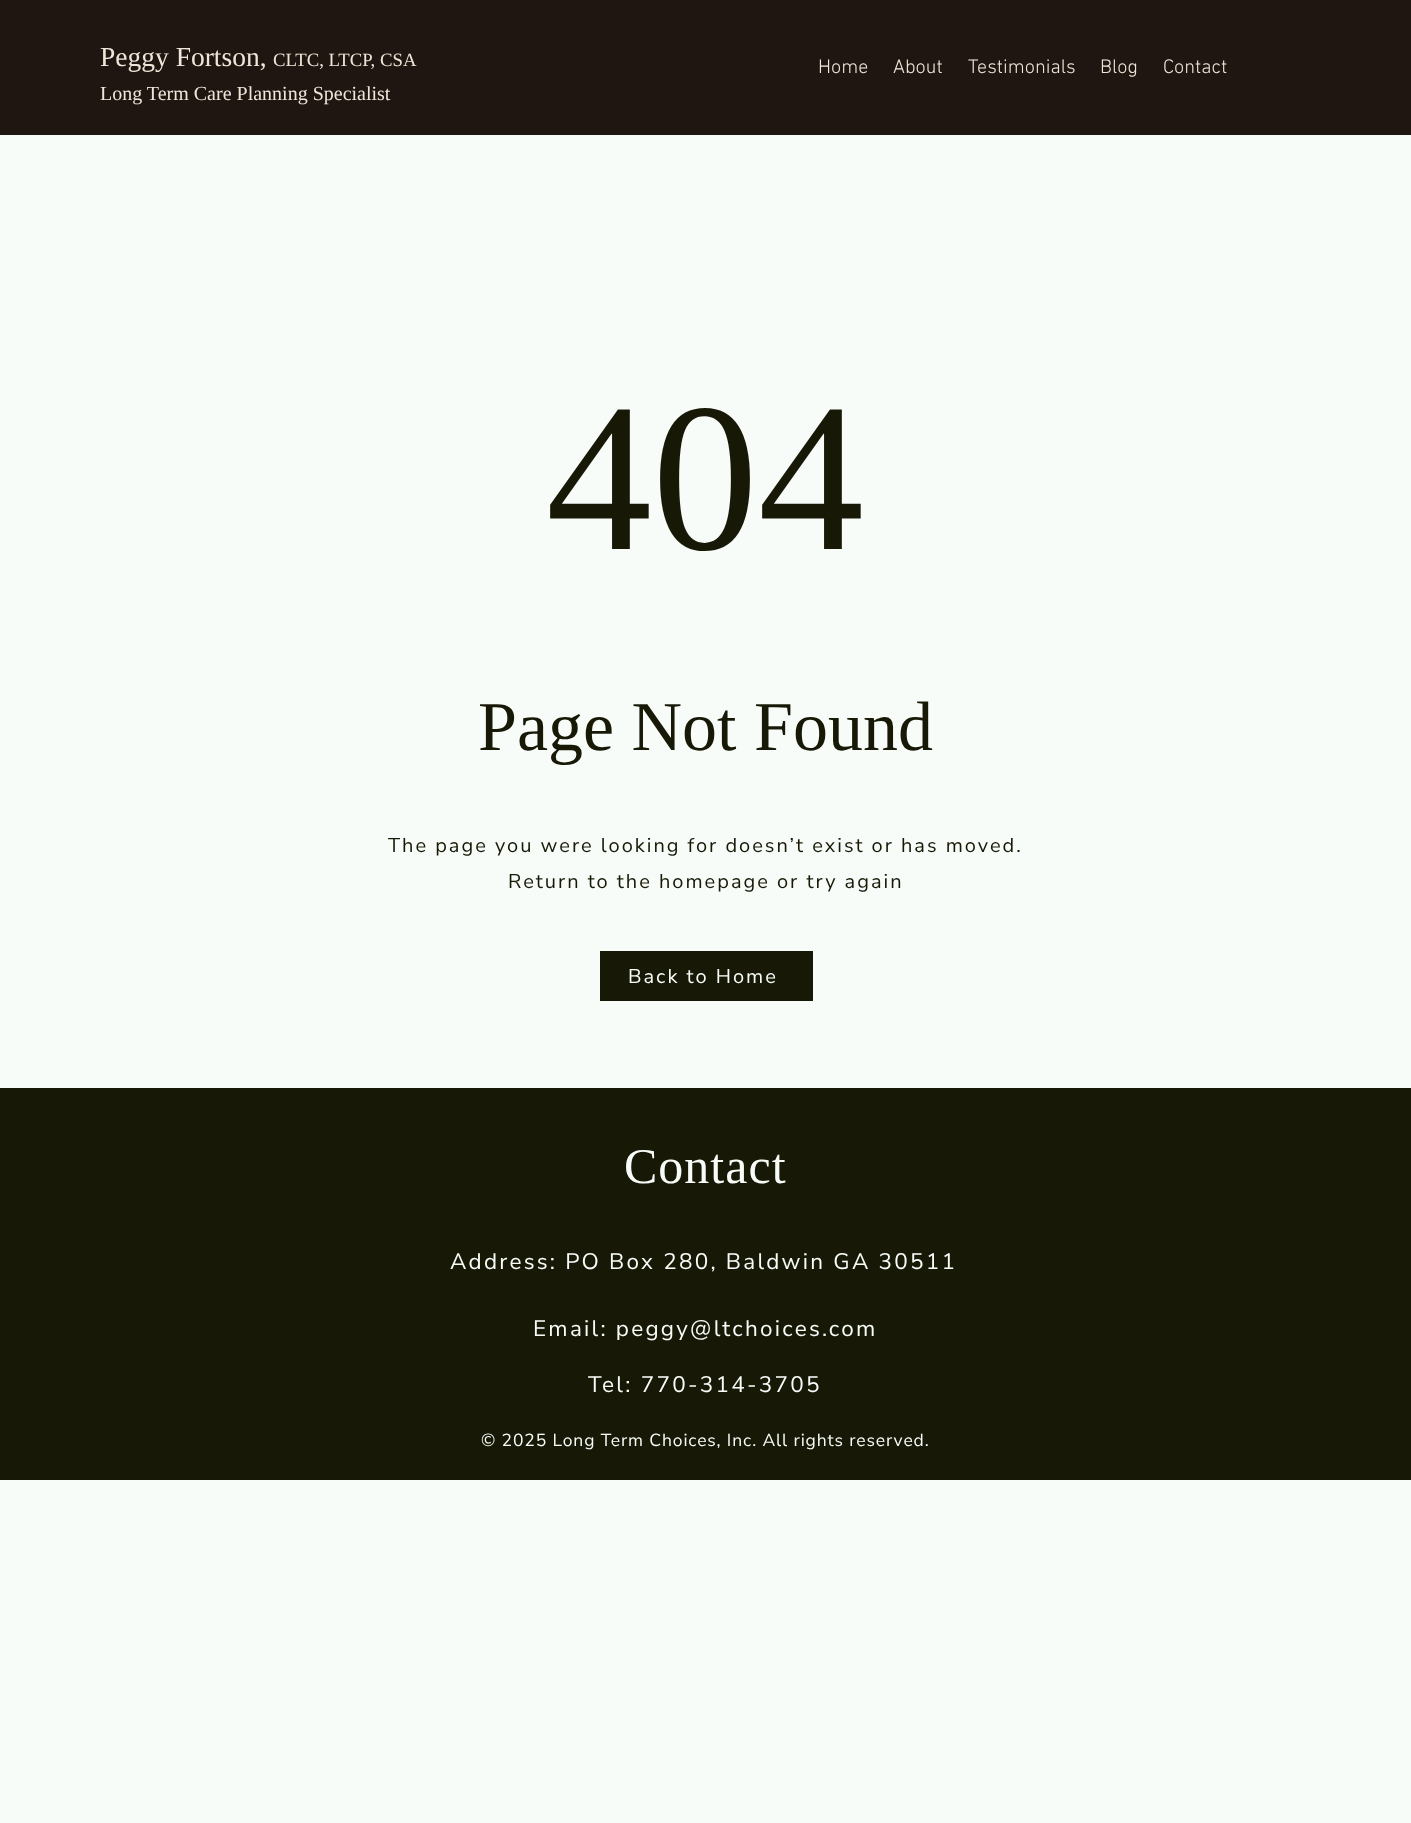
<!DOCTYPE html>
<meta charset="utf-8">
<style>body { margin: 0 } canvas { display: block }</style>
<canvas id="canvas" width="1411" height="1823"></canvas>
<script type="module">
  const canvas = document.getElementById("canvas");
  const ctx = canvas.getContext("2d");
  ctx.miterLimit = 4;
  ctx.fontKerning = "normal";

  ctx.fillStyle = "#f8fcf8";
  ctx.fillRect(0, 0, 1411, 1823);
  ctx.fillStyle = "#201611";
  ctx.fillRect(0, 0, 1411, 135);
  ctx.font = "27.5px Liberation Serif";
  ctx.fillStyle = "#ede7d9";
  ctx.fillText("Peggy Fortson,", 100, 66);
  ctx.font = "18.75px Liberation Serif";
  ctx.fillText("CLTC, LTCP, CSA", 273, 66);
  ctx.font = "20px Liberation Serif";
  ctx.fillText("Long Term Care Planning Specialist", 100, 100);
  ctx.font = "300 20px 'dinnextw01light'";
  ctx.fillText("Home", 818, 73);
  ctx.fillText("About", 893, 73);
  ctx.fillText("Testimonials", 968, 73);
  ctx.fillText("Blog", 1100, 73);
  ctx.fillText("Contact", 1163, 73);
  ctx.font = "212px Liberation Serif";
  ctx.fillStyle = "#171906";
  ctx.fillText("404", 546, 549);
  ctx.font = "70px Liberation Serif";
  ctx.fillText("Page Not Found", 478, 750);
  ctx.letterSpacing = "2px";
  ctx.font = "20px Nunito Sans";
  ctx.fillText("The page you were looking for doesn’t exist or has moved.", 388, 852);
  ctx.fillText("Return to the homepage or try again", 508, 888);
  ctx.fillRect(600, 951, 213, 50);
  ctx.fillStyle = "#f8fcf8";
  ctx.fillText("Back to Home", 628, 983);
  ctx.fillStyle = "#171906";
  ctx.fillRect(0, 1088, 1411, 392);
  ctx.letterSpacing = "1px";
  ctx.font = "50px Liberation Serif";
  ctx.fillStyle = "#f8fcf8";
  ctx.fillText("Contact", 624, 1183);
  ctx.letterSpacing = "2.25px";
  ctx.font = "22.5px Nunito Sans";
  ctx.fillText("Address: PO Box 280, Baldwin GA 30511", 450, 1269);
  ctx.fillText("Email: peggy@ltchoices.com", 533, 1336);
  ctx.fillText("Tel: 770-314-3705", 588, 1392);
  ctx.letterSpacing = "0.88px";
  ctx.font = "17.5px Nunito Sans";
  ctx.fillText("© 2025 Long Term Choices, Inc. All rights reserved.", 481, 1446);
</script>
